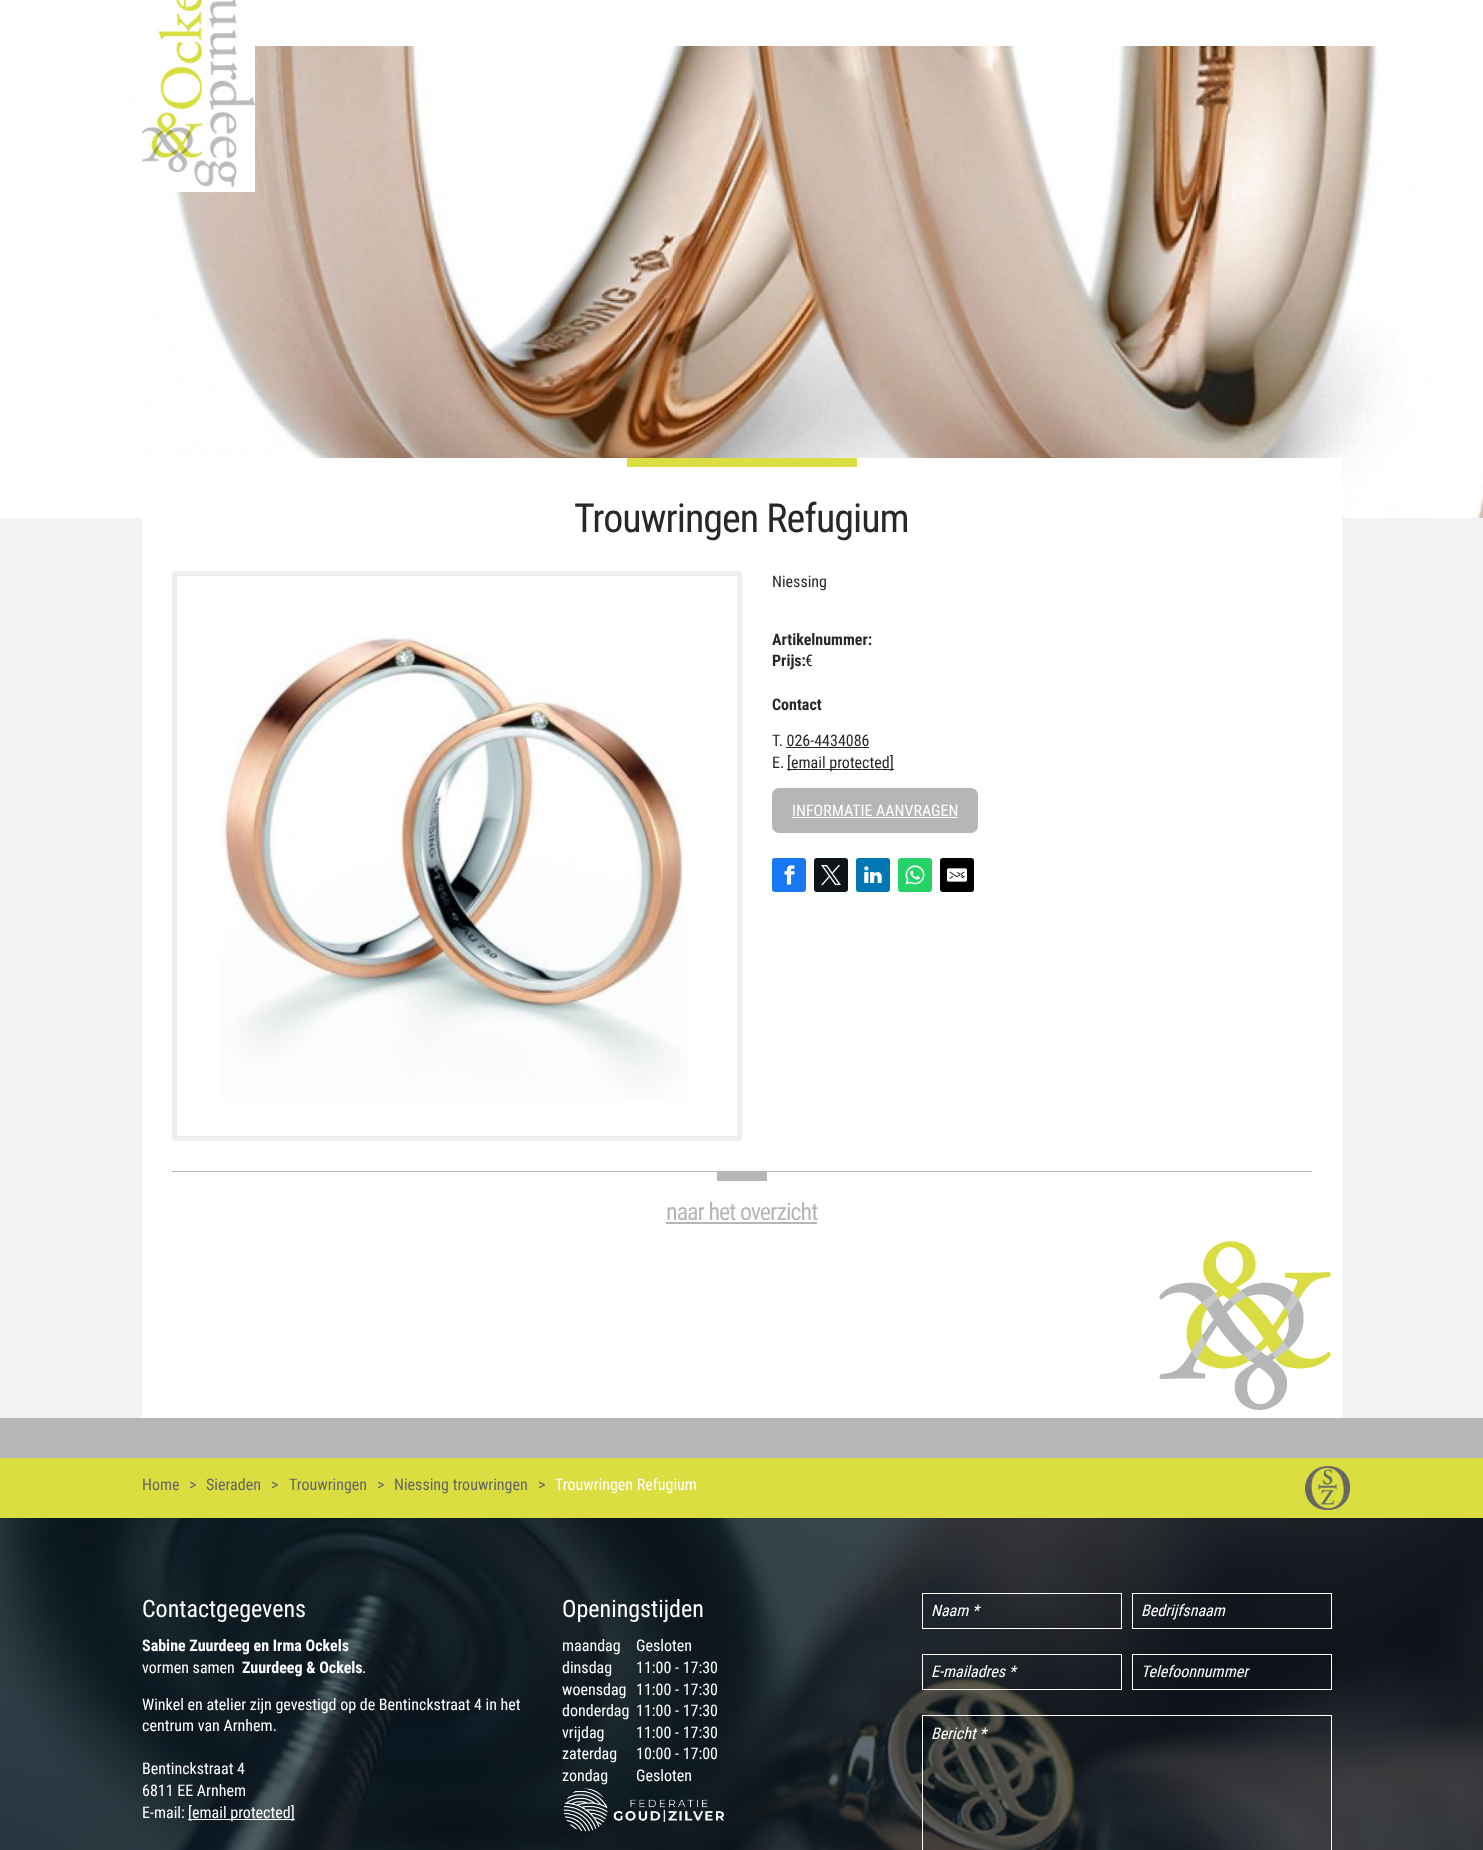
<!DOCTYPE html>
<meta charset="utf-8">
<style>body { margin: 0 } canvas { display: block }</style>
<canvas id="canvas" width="1483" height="1850"></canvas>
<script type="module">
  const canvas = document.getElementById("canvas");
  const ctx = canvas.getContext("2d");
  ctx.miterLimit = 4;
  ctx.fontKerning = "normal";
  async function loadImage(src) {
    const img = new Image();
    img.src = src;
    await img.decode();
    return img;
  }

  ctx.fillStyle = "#f2f2f2";
  ctx.fillRect(0, 0, 1483, 1850);
  ctx.drawImage(await loadImage("img1.png"), 0, 46, 1483, 472);
  ctx.fillStyle = "#ffffff";
  ctx.fillRect(0, 0, 1483, 46);
  ctx.drawImage(await loadImage("img2.png"), 142, 0, 113, 192);
  ctx.fillRect(142, 458, 1200, 960);
  ctx.drawImage(await loadImage("img3.png"), 1159, 1241, 172, 169);
  ctx.fillStyle = "#dade41";
  ctx.fillRect(627, 458, 230, 9);
  ctx.letterSpacing = "-1px";
  ctx.font = "40px Roboto Condensed";
  ctx.fillStyle = "#282828";
  ctx.fillText("Trouwringen Refugium", 574, 532);
  ctx.beginPath();
  ctx.roundRect(174.5, 573.5, 565, 565, 1.5);
  ctx.strokeStyle = "#eeeeee";
  ctx.lineWidth = 5;
  ctx.stroke();
  ctx.drawImage(await loadImage("img4.png"), 220, 634, 468, 468);
  ctx.letterSpacing = "0px";
  ctx.font = "16px Roboto Condensed";
  ctx.fillText("Niessing", 772, 587);
  ctx.font = "bold 16px Roboto Condensed";
  ctx.fillText("Artikelnummer:", 772, 645);
  ctx.fillText("Prijs:", 772, 666);
  ctx.font = "16px Roboto Condensed";
  ctx.fillText("€", 805, 666);
  ctx.font = "bold 16px Roboto Condensed";
  ctx.fillText("Contact", 772, 710);
  ctx.font = "16px Roboto Condensed";
  ctx.fillText("T. 026-4434086", 772, 746);
  ctx.fillRect(786, 747, 83, 1);
  ctx.fillText("E.", 772, 768);
  ctx.fillRect(787, 769, 107, 1);
  ctx.fillText("[email protected]", 787, 768);
  ctx.fillStyle = "#b5b7b7";
  ctx.beginPath();
  ctx.roundRect(772, 788, 206, 45, 7);
  ctx.fill();
  ctx.fillStyle = "#ffffff";
  ctx.fillText("INFORMATIE AANVRAGEN", 792, 816);
  ctx.fillRect(792, 817, 166, 1);
  ctx.fillStyle = "#1877f2";
  ctx.beginPath();
  ctx.roundRect(772, 858, 34, 34, 3);
  ctx.fill();
  ctx.drawImage(await loadImage("img5.png"), 784, 865, 11, 20);
  ctx.fillStyle = "#0f1419";
  ctx.beginPath();
  ctx.roundRect(814, 858, 34, 34, 3);
  ctx.fill();
  ctx.drawImage(await loadImage("img6.png"), 821, 865, 20, 20);
  ctx.fillStyle = "#0077b5";
  ctx.beginPath();
  ctx.roundRect(856, 858, 34, 34, 3);
  ctx.fill();
  ctx.drawImage(await loadImage("img7.png"), 864, 866, 18, 17);
  ctx.fillStyle = "#25d366";
  ctx.beginPath();
  ctx.roundRect(898, 858, 34, 34, 3);
  ctx.fill();
  ctx.drawImage(await loadImage("img8.png"), 905, 865, 20, 20);
  ctx.fillStyle = "#000000";
  ctx.beginPath();
  ctx.roundRect(940, 858, 34, 34, 3);
  ctx.fill();
  ctx.drawImage(await loadImage("img9.png"), 947, 868, 20, 14);
  ctx.fillStyle = "#b5b7b7";
  ctx.fillRect(172, 1171, 1140, 1);
  ctx.fillRect(717, 1172, 50, 9);
  ctx.letterSpacing = "-1px";
  ctx.font = "24px Roboto Condensed";
  ctx.fillText("naar het overzicht", 666, 1220);
  ctx.fillRect(666, 1222, 151, 2);
  ctx.fillRect(0, 1418, 1483, 40);
  ctx.fillStyle = "#dade41";
  ctx.fillRect(0, 1458, 1483, 60);
  ctx.drawImage(await loadImage("img10.png"), 1305, 1466, 45, 44);
  ctx.letterSpacing = "0px";
  ctx.font = "16px Roboto Condensed";
  ctx.fillStyle = "#666666";
  ctx.fillText("Home", 142, 1490);
  ctx.fillText(">", 189, 1490);
  ctx.fillText("Sieraden", 206, 1490);
  ctx.fillText(">", 271, 1490);
  ctx.fillText("Trouwringen", 289, 1490);
  ctx.fillText(">", 377, 1490);
  ctx.fillText("Niessing trouwringen", 394, 1490);
  ctx.fillText(">", 538, 1490);
  ctx.fillStyle = "#ffffff";
  ctx.fillText("Trouwringen Refugium", 555, 1490);
  ctx.drawImage(await loadImage("img11.png"), 0, 1518, 1483, 332);
  ctx.font = "24px Roboto Condensed";
  ctx.fillText("Contactgegevens", 142, 1617);
  ctx.font = "bold 16px Roboto Condensed";
  ctx.fillText("Sabine Zuurdeeg en Irma Ockels", 142, 1651);
  ctx.font = "16px Roboto Condensed";
  ctx.fillText("vormen samen", 142, 1673);
  ctx.font = "bold 16px Roboto Condensed";
  ctx.fillText("Zuurdeeg & Ockels", 242, 1673);
  ctx.font = "16px Roboto Condensed";
  ctx.fillText(".", 362, 1673);
  ctx.fillText("Winkel en atelier zijn gevestigd op de Bentinckstraat 4 in het", 142, 1710);
  ctx.fillText("centrum van Arnhem.", 142, 1731);
  ctx.fillText("Bentinckstraat 4", 142, 1774);
  ctx.fillText("6811 EE Arnhem", 142, 1796);
  ctx.fillText("E-mail:", 142, 1818);
  ctx.fillRect(188, 1819, 107, 1);
  ctx.fillText("[email protected]", 188, 1818);
  ctx.font = "24px Roboto Condensed";
  ctx.fillText("Openingstijden", 562, 1617);
  ctx.font = "16px Roboto Condensed";
  ctx.fillText("maandag", 562, 1651);
  ctx.fillText("Gesloten", 636, 1651);
  ctx.fillText("dinsdag", 562, 1673);
  ctx.fillText("11:00 - 17:30", 636, 1673);
  ctx.fillText("woensdag", 562, 1695);
  ctx.fillText("11:00 - 17:30", 636, 1695);
  ctx.fillText("donderdag", 562, 1716);
  ctx.fillText("11:00 - 17:30", 636, 1716);
  ctx.fillText("vrijdag", 562, 1738);
  ctx.fillText("11:00 - 17:30", 636, 1738);
  ctx.fillText("zaterdag", 562, 1759);
  ctx.fillText("10:00 - 17:00", 636, 1759);
  ctx.fillText("zondag", 562, 1781);
  ctx.fillText("Gesloten", 636, 1781);
  ctx.drawImage(await loadImage("img12.png"), 563, 1788, 161, 44);
  ctx.strokeStyle = "#ffffff";
  ctx.lineWidth = 1;
  ctx.strokeRect(922.5, 1593.5, 199, 35);
  ctx.font = "italic 16px Roboto Condensed";
  ctx.fillText("Naam *", 931, 1616);
  ctx.strokeRect(1132.5, 1593.5, 199, 35);
  ctx.fillText("Bedrijfsnaam", 1141, 1616);
  ctx.strokeRect(922.5, 1654.5, 199, 35);
  ctx.fillText("E-mailadres *", 931, 1677);
  ctx.strokeRect(1132.5, 1654.5, 199, 35);
  ctx.fillText("Telefoonnummer", 1141, 1677);
  ctx.strokeRect(922.5, 1715.5, 409, 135);
  ctx.fillText("Bericht *", 931, 1739);
</script>
